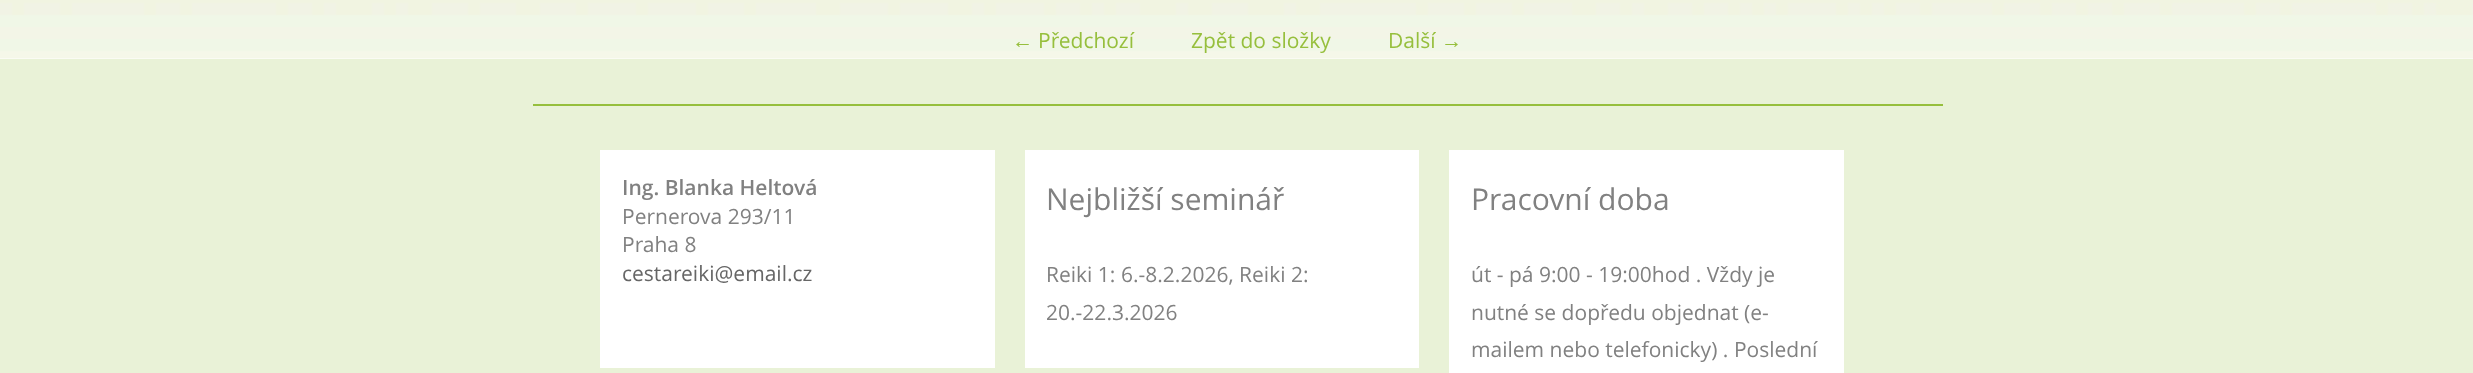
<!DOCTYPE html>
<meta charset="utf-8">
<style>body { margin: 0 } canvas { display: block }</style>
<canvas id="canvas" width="2473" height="373"></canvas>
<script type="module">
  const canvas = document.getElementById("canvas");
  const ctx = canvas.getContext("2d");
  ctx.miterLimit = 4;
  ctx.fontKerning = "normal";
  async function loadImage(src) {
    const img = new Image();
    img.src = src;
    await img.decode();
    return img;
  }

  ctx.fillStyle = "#e9f2d7";
  ctx.fillRect(0, 0, 2473, 373);
  ctx.fillStyle = "#ffffff";
  ctx.fillRect(0, 58, 2473, 1);
  ctx.drawImage(await loadImage("img1.png"), 0, 0, 2473, 59);
  ctx.font = "21px Liberation Sans";
  ctx.fillStyle = "#96bf3d";
  ctx.fillText("←", 1012, 48);
  ctx.font = "21px Open Sans";
  ctx.fillText("Předchozí", 1038, 48);
  ctx.fillText("Zpět do složky", 1191, 48);
  ctx.fillText("Další", 1388, 48);
  ctx.font = "21px Liberation Sans";
  ctx.fillText("→", 1441, 48);
  ctx.fillRect(533, 104, 1410, 2);
  ctx.fillStyle = "#ffffff";
  ctx.fillRect(600, 150, 395, 218);
  ctx.font = "600 21px Open Sans";
  ctx.fillStyle = "#818181";
  ctx.fillText("Ing. Blanka Heltová", 622, 195);
  ctx.font = "21px Open Sans";
  ctx.fillText("Pernerova 293/11", 622, 224);
  ctx.fillText("Praha 8", 622, 252);
  ctx.fillStyle = "#666666";
  ctx.fillText("cestareiki@email.cz", 622, 281);
  ctx.fillStyle = "#ffffff";
  ctx.fillRect(1025, 150, 394, 218);
  ctx.font = "30px Open Sans";
  ctx.fillStyle = "#818181";
  ctx.fillText("Nejbližší seminář", 1046, 210);
  ctx.font = "21px Open Sans";
  ctx.fillText("Reiki 1: 6.-8.2.2026, Reiki 2:", 1046, 282);
  ctx.fillText("20.-22.3.2026", 1046, 320);
  ctx.fillStyle = "#ffffff";
  ctx.fillRect(1449, 150, 395, 223);
  ctx.font = "30px Open Sans";
  ctx.fillStyle = "#818181";
  ctx.fillText("Pracovní doba", 1471, 210);
  ctx.font = "21px Open Sans";
  ctx.fillText("út - pá 9:00 - 19:00hod . Vždy je", 1471, 282);
  ctx.fillText("nutné se dopředu objednat (e-", 1471, 320);
  ctx.fillText("mailem nebo telefonicky) . Poslední", 1471, 357);
</script>
